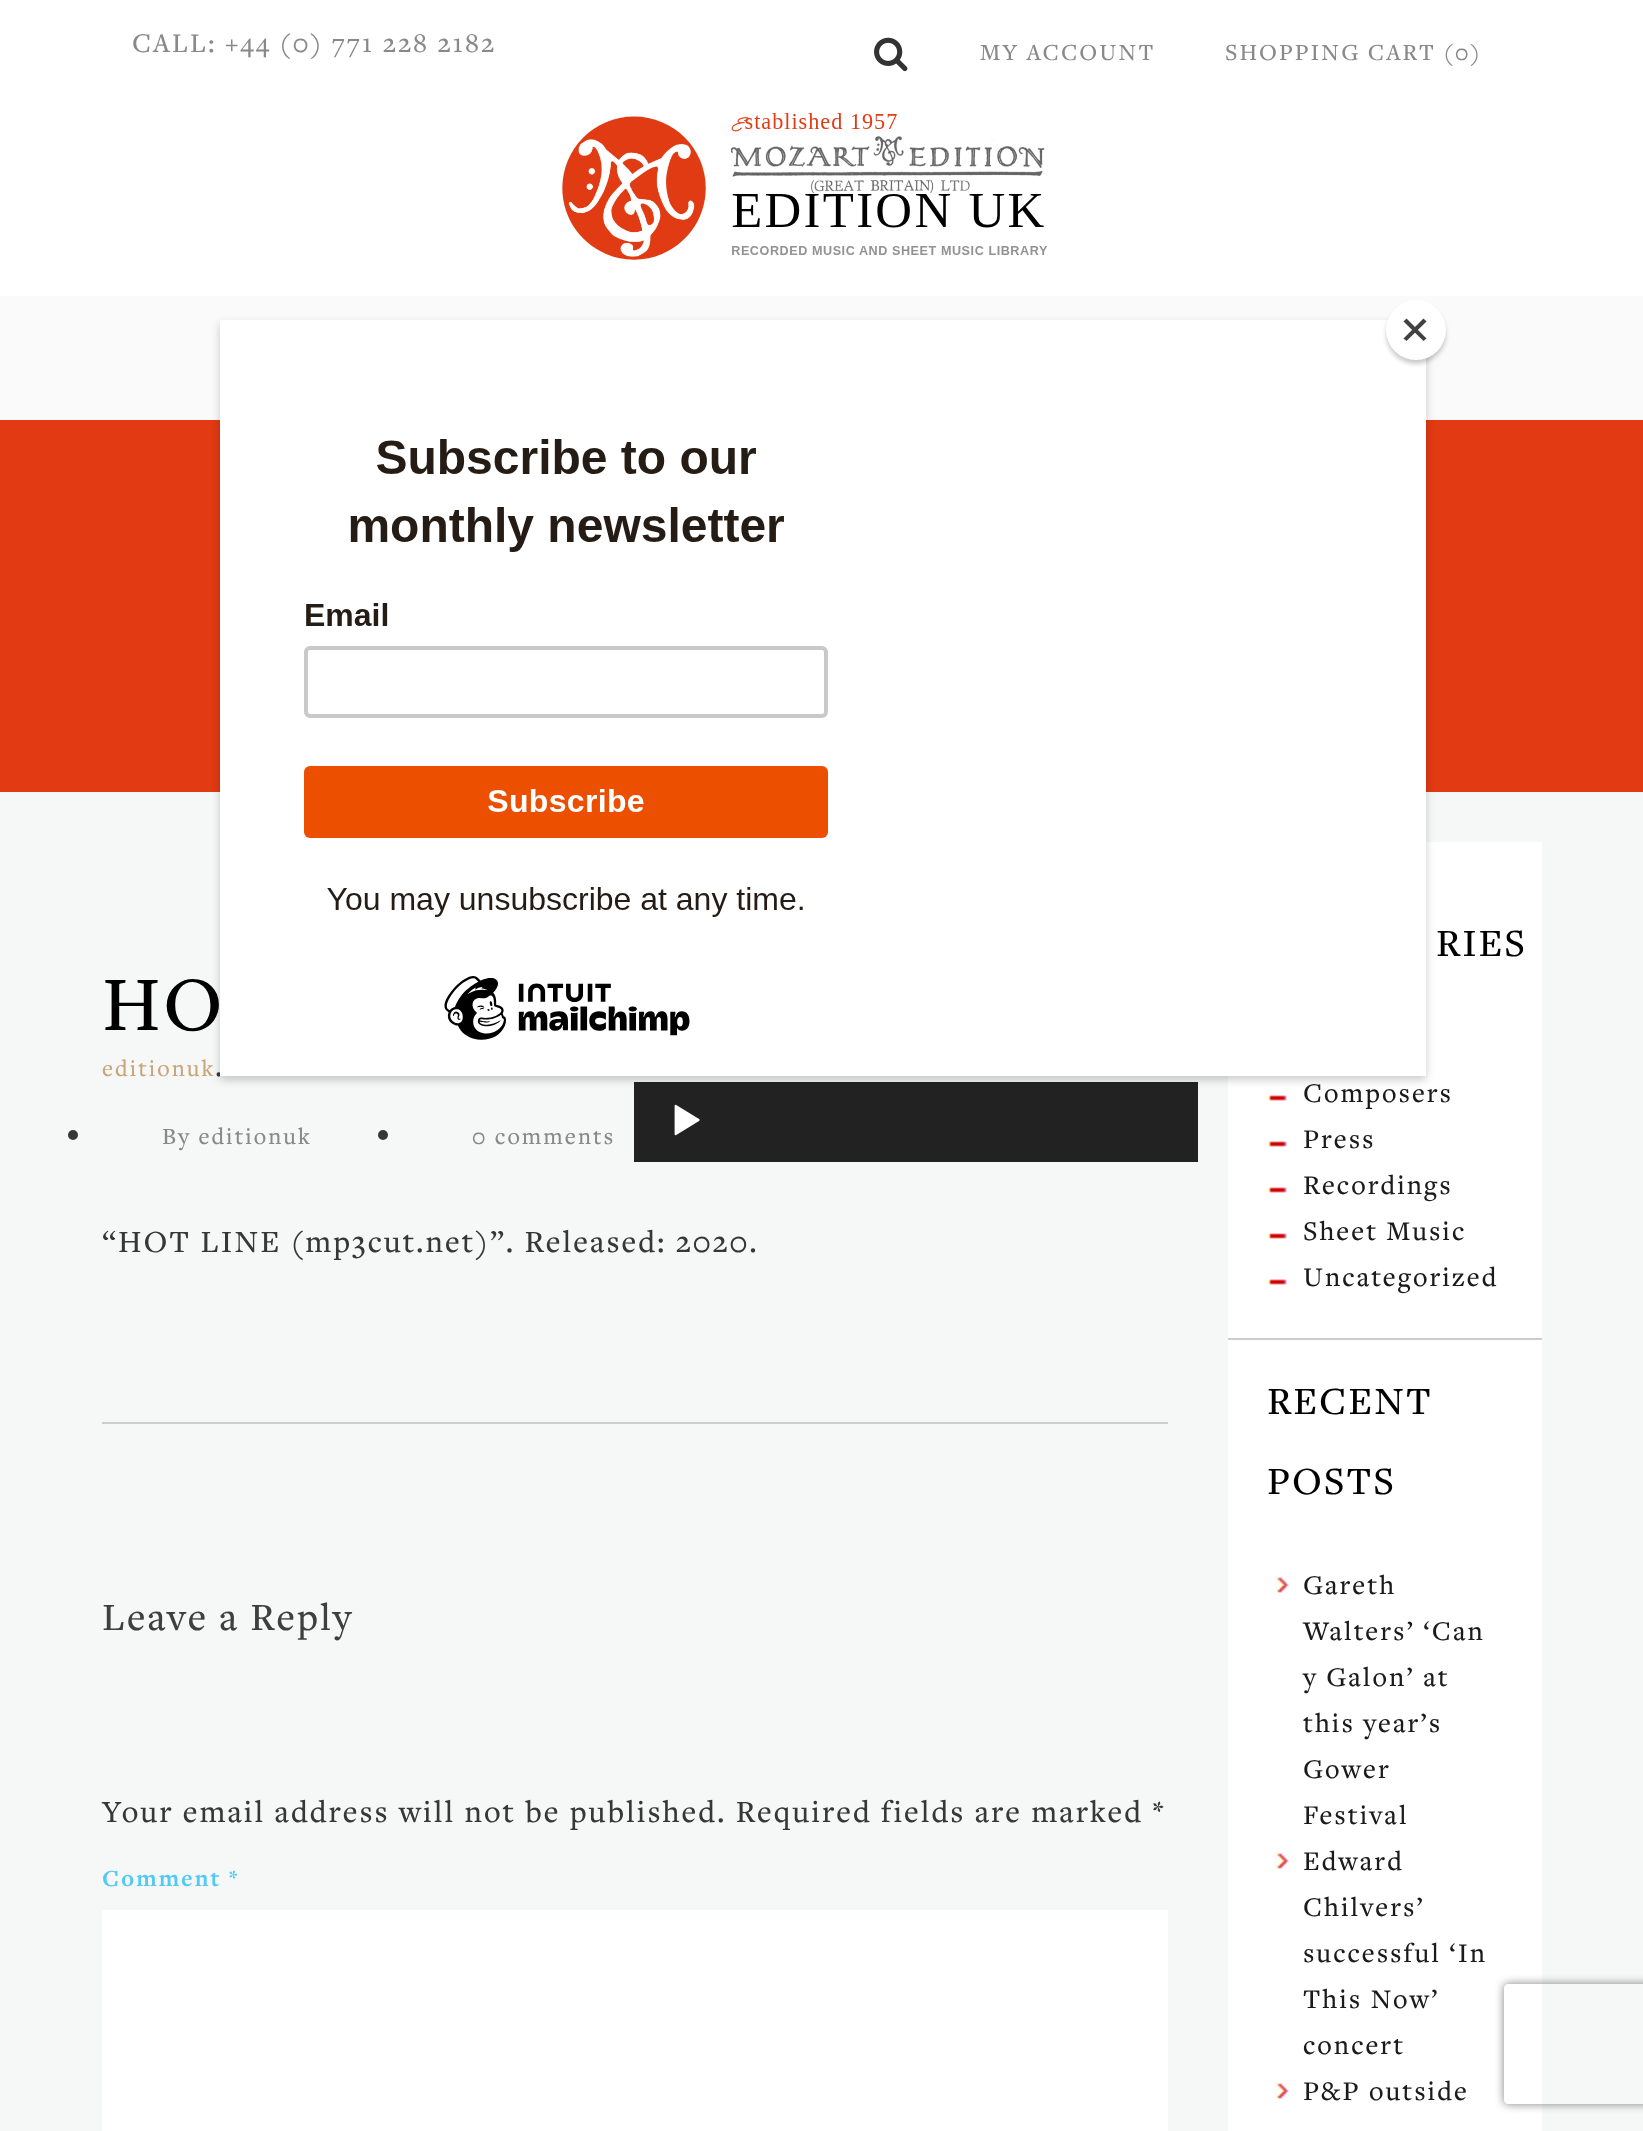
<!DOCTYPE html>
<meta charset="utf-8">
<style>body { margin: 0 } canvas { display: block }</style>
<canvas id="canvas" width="1643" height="2131"></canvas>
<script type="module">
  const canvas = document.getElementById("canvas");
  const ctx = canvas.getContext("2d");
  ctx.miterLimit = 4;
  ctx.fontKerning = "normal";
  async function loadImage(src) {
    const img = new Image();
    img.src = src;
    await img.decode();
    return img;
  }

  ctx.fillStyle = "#ffffff";
  ctx.fillRect(0, 0, 1643, 2131);
  ctx.letterSpacing = "2px";
  ctx.font = "500 28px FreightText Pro";
  ctx.fillStyle = "#898989";
  ctx.fillText("CALL: +44 (0) 771 228 2182", 132, 52);
  ctx.drawImage(await loadImage("img1.png"), 874, 37, 34, 35);
  ctx.font = "500 24px FreightText Pro";
  ctx.fillText("MY ACCOUNT", 980, 60);
  ctx.fillText("SHOPPING CART (0)", 1225, 60);
  ctx.drawImage(await loadImage("img2.png"), 562, 113, 492, 147);
  ctx.fillStyle = "#fafafa";
  ctx.fillRect(0, 296, 1643, 124);
  ctx.fillStyle = "#e23a13";
  ctx.fillRect(0, 420, 1643, 372);
  ctx.fillStyle = "#f6f7f7";
  ctx.fillRect(0, 792, 1643, 1339);
  ctx.font = "500 80px FreightText Pro";
  ctx.fillStyle = "#000000";
  ctx.fillText("HO", 102, 1030);
  ctx.font = "500 24px FreightText Pro";
  ctx.fillStyle = "#caa57b";
  ctx.fillText("editionuk", 102, 1076);
  ctx.font = "500 32px FreightText Pro";
  ctx.fillStyle = "#373737";
  ctx.fillText(".", 215, 1076);
  ctx.beginPath();
  ctx.arc(73, 1135, 5, 0, Math.PI * 2);
  ctx.fill();
  ctx.font = "500 24px FreightText Pro";
  ctx.fillStyle = "#898989";
  ctx.fillText("By editionuk", 162, 1144);
  ctx.fillStyle = "#373737";
  ctx.beginPath();
  ctx.arc(383, 1135, 5, 0, Math.PI * 2);
  ctx.fill();
  ctx.fillStyle = "#898989";
  ctx.fillText("0 comments", 472, 1144);
  ctx.fillStyle = "#222222";
  ctx.fillRect(634, 1082, 564, 80);
  ctx.drawImage(await loadImage("img3.png"), 674, 1104, 26, 32);
  ctx.font = "500 32px FreightText Pro";
  ctx.fillStyle = "#373737";
  ctx.fillText("“HOT LINE (mp3cut.net)”. Released: 2020.", 102, 1252);
  ctx.fillStyle = "#cecece";
  ctx.fillRect(102, 1422, 1066, 2);
  ctx.font = "500 40px FreightText Pro";
  ctx.fillStyle = "#3f3f3f";
  ctx.fillText("Leave a Reply", 102, 1630);
  ctx.font = "500 32px FreightText Pro";
  ctx.fillStyle = "#373737";
  ctx.fillText("Your email address will not be published. Required fields are marked *", 102, 1822);
  ctx.font = "bold 24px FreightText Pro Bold";
  ctx.fillStyle = "#53c9f6";
  ctx.fillText("Comment *", 102, 1886);
  ctx.fillStyle = "#ffffff";
  ctx.fillRect(102, 1910, 1066, 221);
  ctx.fillRect(1228, 842, 314, 1289);
  ctx.fillStyle = "#cccccc";
  ctx.fillRect(1228, 1338, 314, 2);
  ctx.font = "500 40px FreightText Pro";
  ctx.fillStyle = "#000000";
  ctx.fillText("RIES", 1436, 956);
  ctx.drawImage(await loadImage("img4.png"), 1268, 1095, 22, 6);
  ctx.font = "500 28px FreightText Pro";
  ctx.fillStyle = "#1b1b1b";
  ctx.fillText("Composers", 1303, 1102);
  ctx.drawImage(await loadImage("img4.png"), 1268, 1141, 22, 6);
  ctx.fillText("Press", 1303, 1148);
  ctx.drawImage(await loadImage("img4.png"), 1268, 1187, 22, 6);
  ctx.fillText("Recordings", 1303, 1194);
  ctx.drawImage(await loadImage("img4.png"), 1268, 1233, 22, 6);
  ctx.fillText("Sheet Music", 1303, 1240);
  ctx.drawImage(await loadImage("img4.png"), 1268, 1279, 22, 6);
  ctx.fillText("Uncategorized", 1303, 1286);
  ctx.font = "500 40px FreightText Pro";
  ctx.fillStyle = "#000000";
  ctx.fillText("RECENT", 1267, 1414);
  ctx.fillText("POSTS", 1267, 1494);
  ctx.drawImage(await loadImage("img5.png"), 1274, 1576, 16, 18);
  ctx.font = "500 28px FreightText Pro";
  ctx.fillStyle = "#1b1b1b";
  ctx.fillText("Gareth", 1303, 1594);
  ctx.fillText("Walters’ ‘Can", 1303, 1640);
  ctx.fillText("y Galon’ at", 1303, 1686);
  ctx.fillText("this year’s", 1303, 1732);
  ctx.fillText("Gower", 1303, 1778);
  ctx.fillText("Festival", 1303, 1824);
  ctx.drawImage(await loadImage("img5.png"), 1274, 1852, 16, 18);
  ctx.fillText("Edward", 1303, 1870);
  ctx.fillText("Chilvers’", 1303, 1916);
  ctx.fillText("successful ‘In", 1303, 1962);
  ctx.fillText("This Now’", 1303, 2008);
  ctx.fillText("concert", 1303, 2054);
  ctx.drawImage(await loadImage("img5.png"), 1274, 2082, 16, 18);
  ctx.fillText("P&P outside", 1303, 2100);
  ctx.fillStyle = "rgba(0, 0, 0, 0.2)";
  ctx.filter = "blur(4px)";
  ctx.beginPath();
  ctx.rect(220, 324, 1206, 756);
  ctx.fill();
  ctx.filter = "none";
  ctx.drawImage(await loadImage("img6.png"), 220, 320, 1206, 756);
  ctx.filter = "blur(2px)";
  ctx.beginPath();
  ctx.roundRect(1386, 304, 60, 60, 30);
  ctx.fill();
  ctx.filter = "none";
  ctx.fillStyle = "#ffffff";
  ctx.beginPath();
  ctx.arc(1416, 330, 30, 0, Math.PI * 2);
  ctx.fill();
  ctx.fillStyle = "#414141";
  ctx.beginPath();
  ctx.moveTo(1423.5, 318.5);
  ctx.lineTo(1426.5, 321.5);
  ctx.lineTo(1406.5, 341);
  ctx.lineTo(1403.5, 338.5);
  ctx.closePath();
  ctx.fill();
  ctx.beginPath();
  ctx.moveTo(1403.5, 321.5);
  ctx.lineTo(1406.5, 318.5);
  ctx.lineTo(1426.5, 338.5);
  ctx.lineTo(1423.5, 341);
  ctx.closePath();
  ctx.fill();
  ctx.save();
  ctx.beginPath();
  ctx.moveTo(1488, 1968);
  ctx.lineTo(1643, 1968);
  ctx.lineTo(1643, 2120);
  ctx.lineTo(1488, 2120);
  ctx.closePath();
  ctx.moveTo(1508, 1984);
  ctx.lineTo(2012, 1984);
  ctx.bezierCurveTo(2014, 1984, 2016, 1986, 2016, 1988);
  ctx.lineTo(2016, 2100);
  ctx.bezierCurveTo(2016, 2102, 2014, 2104, 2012, 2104);
  ctx.lineTo(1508, 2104);
  ctx.bezierCurveTo(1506, 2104, 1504, 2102, 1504, 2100);
  ctx.lineTo(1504, 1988);
  ctx.bezierCurveTo(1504, 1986, 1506, 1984, 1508, 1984);
  ctx.closePath();
  ctx.clip("evenodd");
  ctx.fillStyle = "#808080";
  ctx.filter = "blur(5px)";
  ctx.beginPath();
  ctx.roundRect(1504, 1984, 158, 120, 4);
  ctx.fill();
  ctx.filter = "none";
  ctx.restore();
</script>
